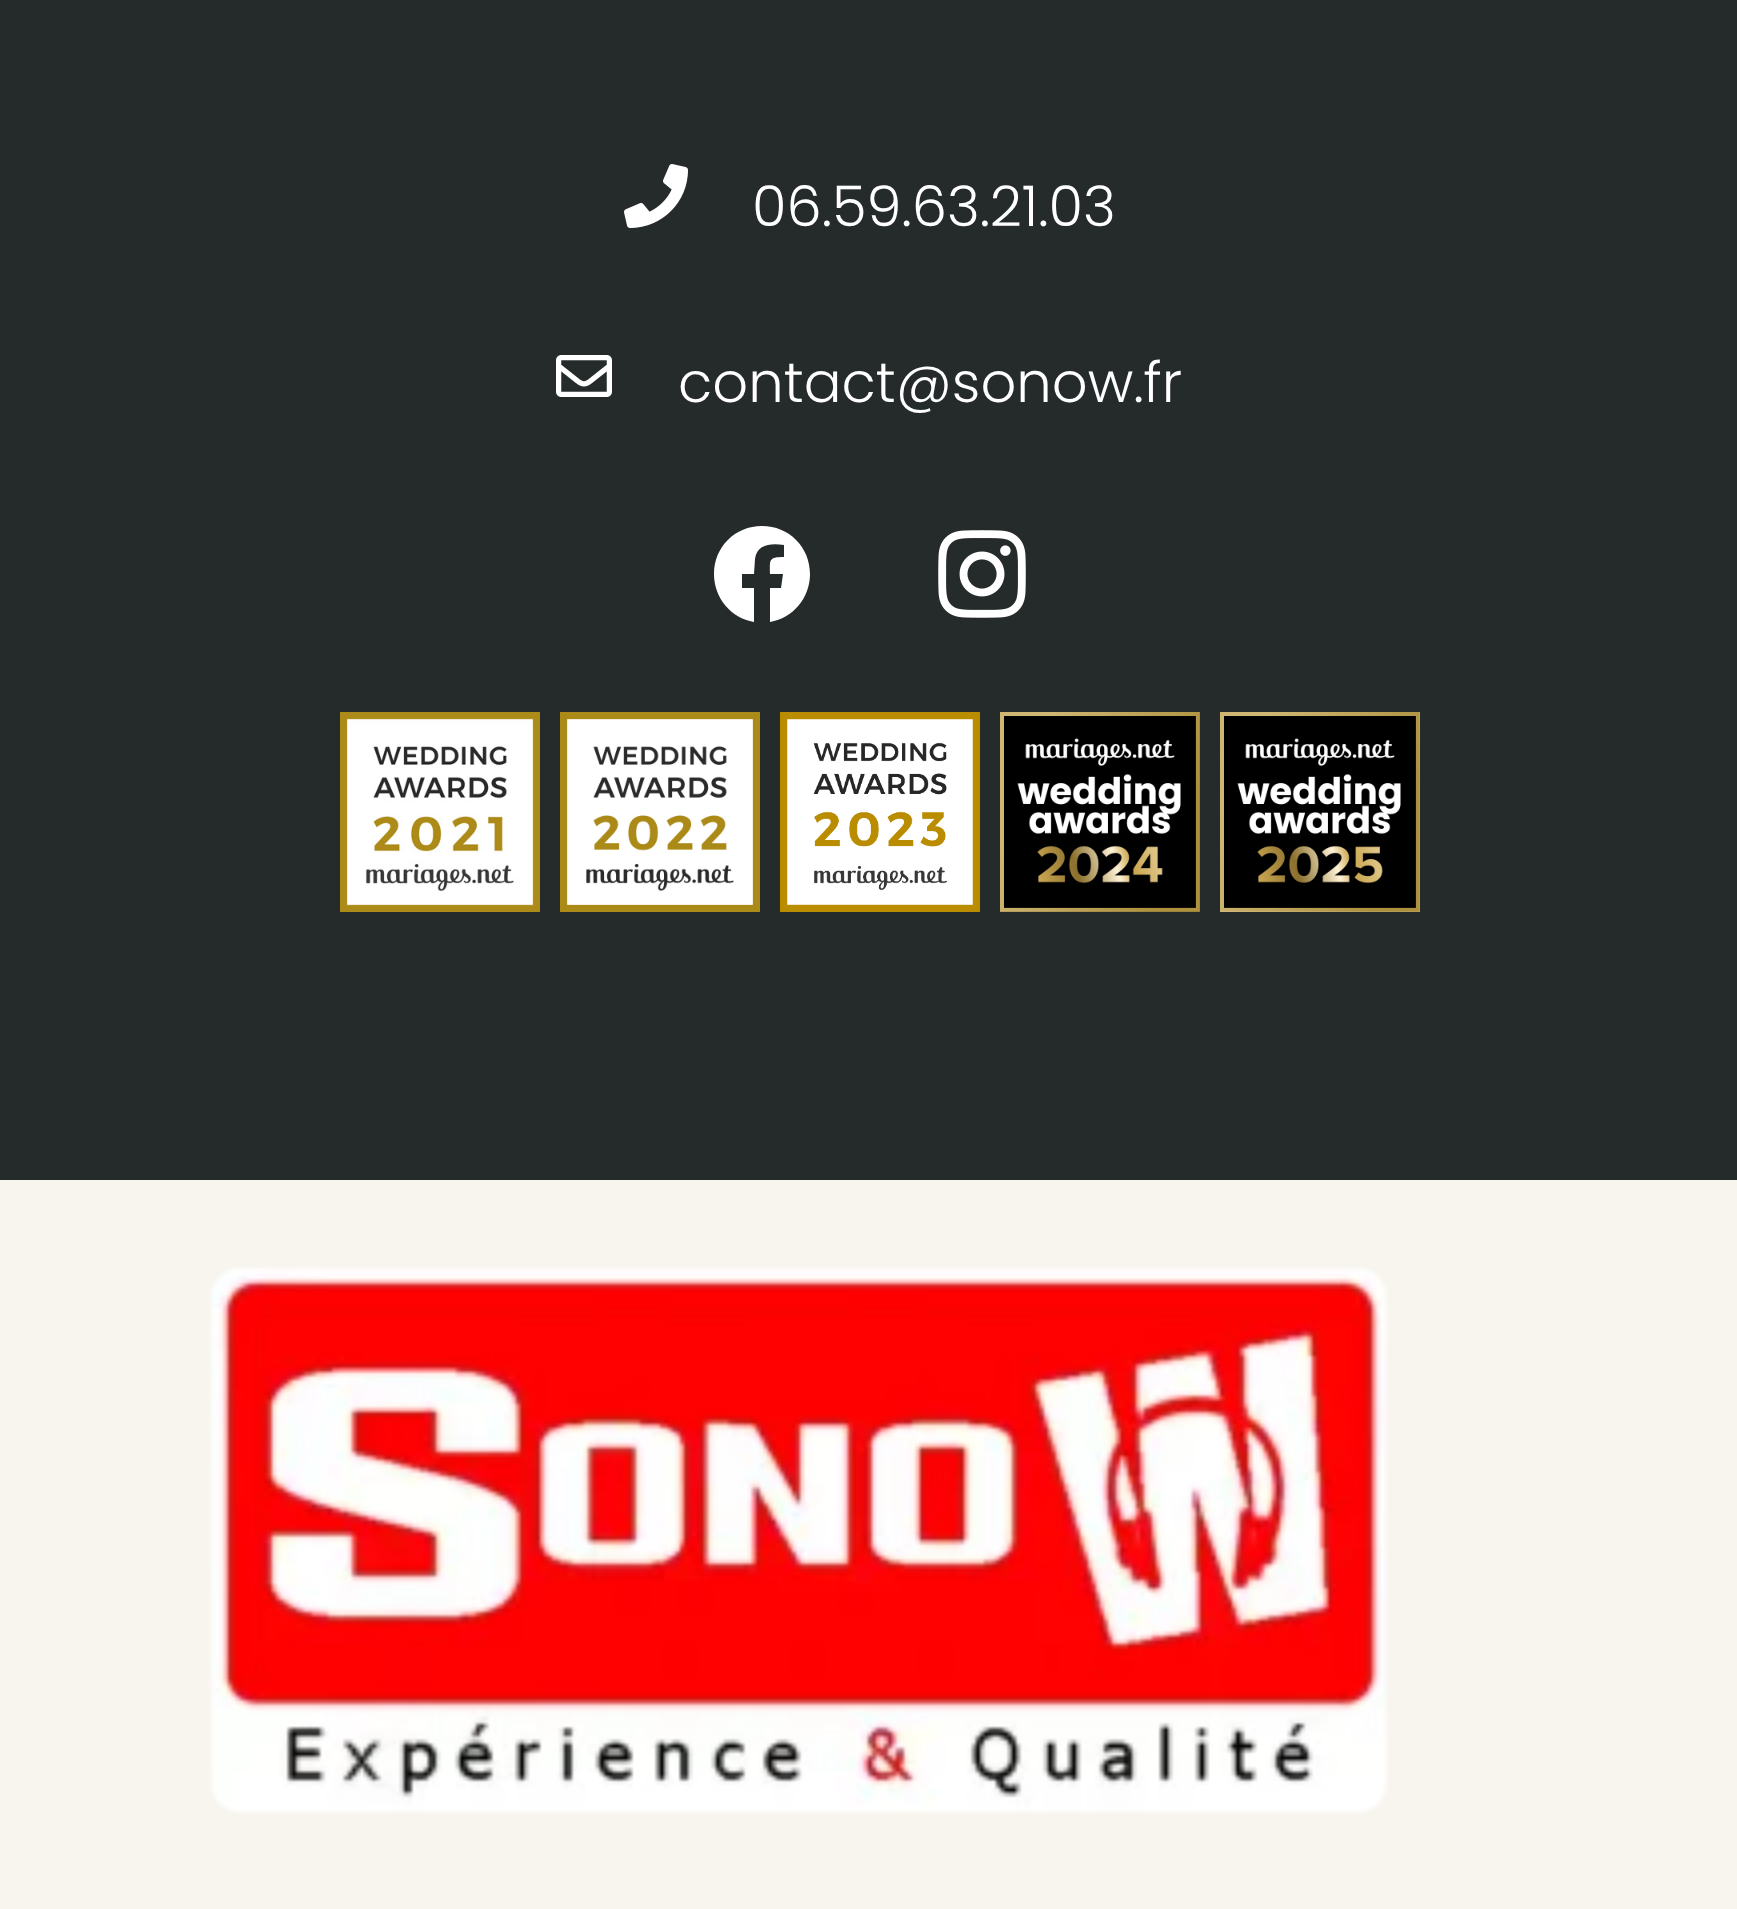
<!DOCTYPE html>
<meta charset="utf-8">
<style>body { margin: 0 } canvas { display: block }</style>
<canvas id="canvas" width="1737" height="1909"></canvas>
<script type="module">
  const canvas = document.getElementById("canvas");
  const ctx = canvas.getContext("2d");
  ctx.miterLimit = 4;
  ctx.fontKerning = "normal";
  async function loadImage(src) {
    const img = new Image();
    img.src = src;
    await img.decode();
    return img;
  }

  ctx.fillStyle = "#252b2b";
  ctx.fillRect(0, 0, 1737, 1909);
  ctx.drawImage(await loadImage("img1.png"), 624, 164, 64, 64);
  ctx.font = "300 56px Poppins";
  ctx.fillStyle = "#ffffff";
  ctx.fillText("06.59.63.21.03", 752, 226);
  ctx.drawImage(await loadImage("img2.png"), 556, 355, 56, 42);
  ctx.fillText("contact@sonow.fr", 678, 402);
  ctx.beginPath();
  ctx.moveTo(810, 574);
  ctx.bezierCurveTo(810, 547, 789, 526, 762, 526);
  ctx.bezierCurveTo(735, 526, 714, 547, 714, 574);
  ctx.bezierCurveTo(714, 598, 731, 618, 754, 622);
  ctx.lineTo(754, 588);
  ctx.lineTo(742, 588);
  ctx.lineTo(742, 574);
  ctx.lineTo(754, 574);
  ctx.lineTo(755, 559);
  ctx.bezierCurveTo(757, 544, 771, 543, 784, 545);
  ctx.lineTo(784, 557);
  ctx.bezierCurveTo(768, 557, 770, 560, 770, 574);
  ctx.lineTo(783, 574);
  ctx.lineTo(781, 588);
  ctx.lineTo(770, 588);
  ctx.lineTo(770, 622);
  ctx.bezierCurveTo(793, 618, 810, 598, 810, 574);
  ctx.closePath();
  ctx.fill();
  ctx.drawImage(await loadImage("img3.png"), 938, 530, 88, 88);
  ctx.drawImage(await loadImage("img4.png"), 340, 712, 200, 200);
  ctx.drawImage(await loadImage("img5.png"), 560, 712, 200, 200);
  ctx.drawImage(await loadImage("img6.png"), 780, 712, 200, 200);
  ctx.drawImage(await loadImage("img7.png"), 1000, 712, 200, 200);
  ctx.drawImage(await loadImage("img8.png"), 1220, 712, 200, 200);
  ctx.fillStyle = "#f8f5ee";
  ctx.fillRect(0, 1180, 1737, 729);
  ctx.drawImage(await loadImage("img9.png"), 209, 1267, 1179, 547);
</script>
